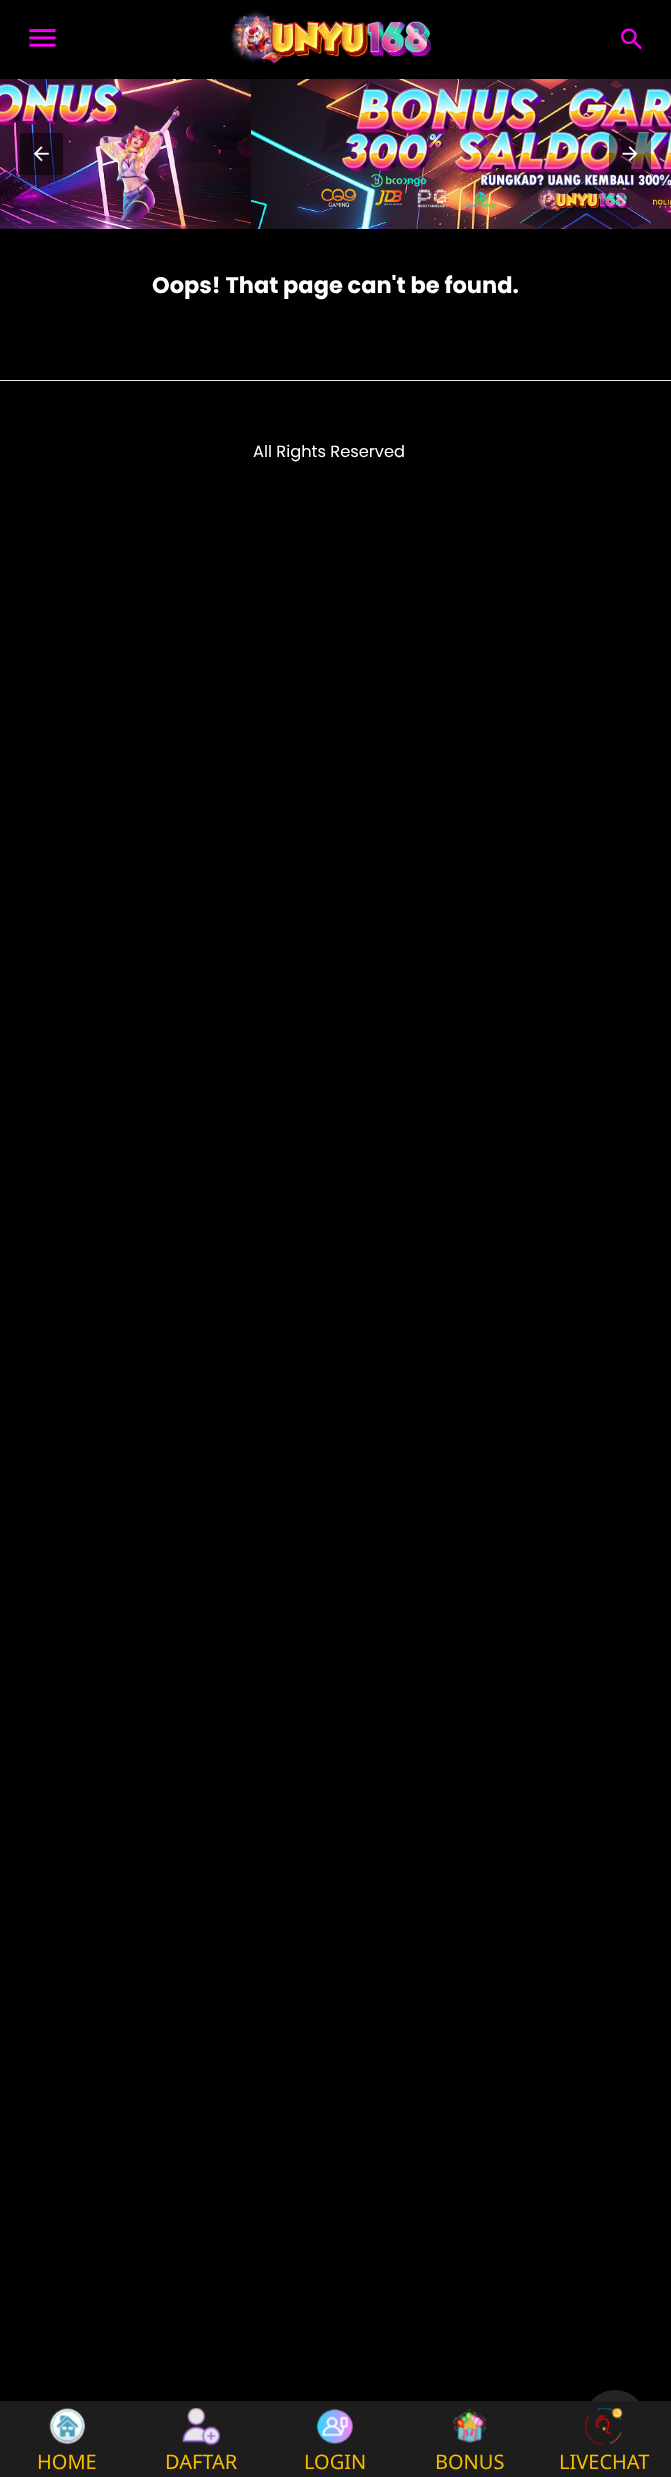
<!DOCTYPE html>
<meta charset="utf-8">
<style>body { margin: 0 } canvas { display: block }</style>
<canvas id="canvas" width="671" height="2477"></canvas>
<script type="module">
  const canvas = document.getElementById("canvas");
  const ctx = canvas.getContext("2d");
  ctx.miterLimit = 4;
  ctx.fontKerning = "normal";
  async function loadImage(src) {
    const img = new Image();
    img.src = src;
    await img.decode();
    return img;
  }

  ctx.fillStyle = "#000000";
  ctx.fillRect(0, 0, 671, 2477);
  ctx.drawImage(await loadImage("img1.png"), 29, 29, 27, 18);
  ctx.drawImage(await loadImage("img2.png"), 230, 10, 202, 54);
  ctx.drawImage(await loadImage("img3.png"), 621, 28, 21, 22);
  ctx.drawImage(await loadImage("img4.png"), 0, 79, 251, 150);
  ctx.drawImage(await loadImage("img5.png"), 251, 79, 420, 150);
  ctx.fillStyle = "rgba(0, 0, 0, 0.5)";
  ctx.beginPath();
  ctx.roundRect(20, 133, 43, 42, 2.5);
  ctx.fill();
  ctx.drawImage(await loadImage("img6.png"), 33, 146, 16, 16);
  ctx.beginPath();
  ctx.roundRect(609, 133, 42, 42, 2.5);
  ctx.fill();
  ctx.drawImage(await loadImage("img7.png"), 622, 146, 16, 16);
  ctx.font = "bold 22.5px Poppins";
  ctx.fillStyle = "#ffffff";
  ctx.fillText("Oops! That page can't be found.", 152, 293);
  ctx.fillStyle = "#eeeeee";
  ctx.fillRect(0, 380, 671, 1);
  ctx.font = "16.25px Poppins";
  ctx.fillStyle = "#ffffff";
  ctx.fillText("All Rights Reserved", 253, 457);
  ctx.fillStyle = "#242424";
  ctx.beginPath();
  ctx.roundRect(584, 2390, 62, 63, 31);
  ctx.fill();
  ctx.fillStyle = "#1d1d1d";
  ctx.fillRect(0, 2401, 671, 76);
  ctx.drawImage(await loadImage("img8.png"), 49, 2408, 36, 37);
  ctx.font = "20px Noto Sans";
  ctx.fillStyle = "#f9bc00";
  ctx.fillText("HOME", 37, 2469);
  ctx.drawImage(await loadImage("img9.png"), 182, 2408, 39, 38);
  ctx.fillText("DAFTAR", 165, 2469);
  ctx.drawImage(await loadImage("img10.png"), 316, 2409, 38, 35);
  ctx.fillText("LOGIN", 304, 2469);
  ctx.drawImage(await loadImage("img11.png"), 452, 2408, 35, 35);
  ctx.fillText("BONUS", 435, 2469);
  ctx.drawImage(await loadImage("img12.png"), 584, 2408, 39, 38);
  ctx.fillText("LIVECHAT", 559, 2469);
</script>
